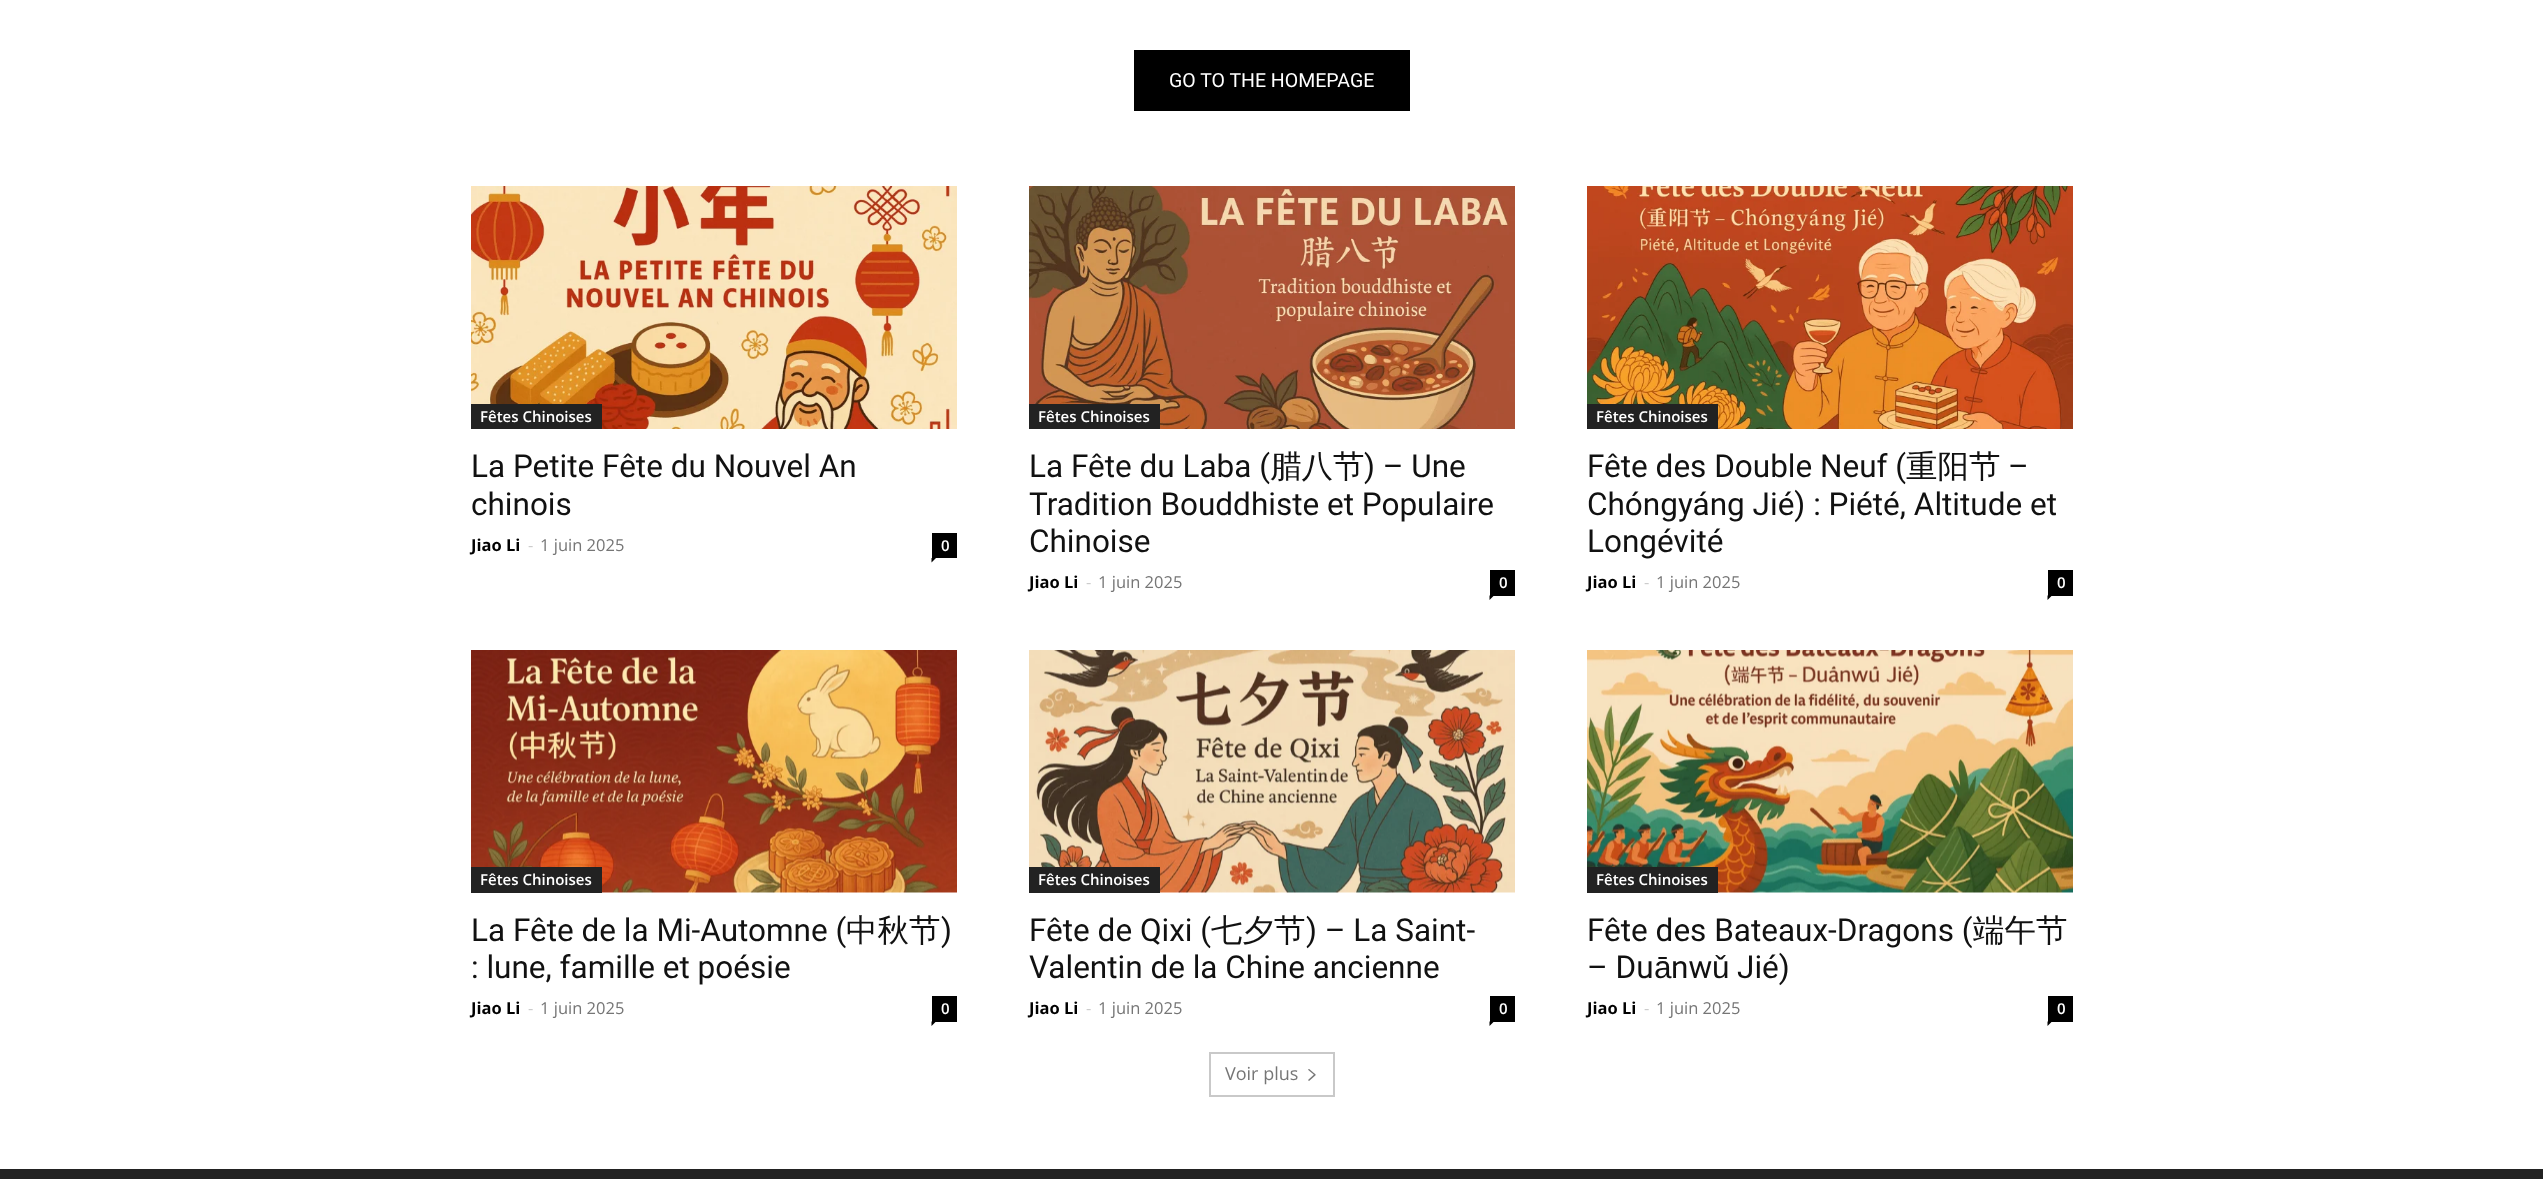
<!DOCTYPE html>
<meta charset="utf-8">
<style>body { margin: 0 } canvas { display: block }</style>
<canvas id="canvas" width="2543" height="1179"></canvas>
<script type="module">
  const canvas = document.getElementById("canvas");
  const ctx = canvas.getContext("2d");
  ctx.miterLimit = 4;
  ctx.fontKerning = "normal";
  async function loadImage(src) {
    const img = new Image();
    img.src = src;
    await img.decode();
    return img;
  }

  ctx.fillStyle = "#ffffff";
  ctx.fillRect(0, 0, 2543, 1179);
  ctx.fillStyle = "#000000";
  ctx.fillRect(1134, 50, 276, 61);
  ctx.font = "19.5px Roboto";
  ctx.fillStyle = "#ffffff";
  ctx.fillText("GO TO THE HOMEPAGE", 1169, 87);
  ctx.drawImage(await loadImage("img1.png"), 471, 186, 486, 243);
  ctx.fillStyle = "#222222";
  ctx.fillRect(471, 404, 131, 25);
  ctx.font = "600 15px Open Sans";
  ctx.fillStyle = "#ffffff";
  ctx.fillText("Fêtes Chinoises", 480, 422);
  ctx.font = "31.5px Roboto";
  ctx.fillStyle = "#111111";
  ctx.fillText("La Petite Fête du Nouvel An", 471, 477);
  ctx.fillText("chinois", 471, 515);
  ctx.font = "bold 16.5px Open Sans";
  ctx.fillStyle = "#000000";
  ctx.fillText("Jiao Li", 471, 551);
  ctx.font = "16.5px Open Sans";
  ctx.fillStyle = "#cccccc";
  ctx.fillText("-", 528, 551);
  ctx.fillStyle = "#767676";
  ctx.fillText("1 juin 2025", 540, 551);
  ctx.fillStyle = "#000000";
  ctx.fillRect(932, 533, 25, 25);
  ctx.font = "600 15px Open Sans";
  ctx.fillStyle = "#ffffff";
  ctx.fillText("0", 941, 551);
  ctx.fillStyle = "#000000";
  ctx.beginPath();
  ctx.moveTo(931.5, 558);
  ctx.lineTo(936, 558);
  ctx.lineTo(931.5, 562.5);
  ctx.closePath();
  ctx.fill();
  ctx.drawImage(await loadImage("img2.png"), 1029, 186, 486, 243);
  ctx.fillStyle = "#222222";
  ctx.fillRect(1029, 404, 131, 25);
  ctx.fillStyle = "#ffffff";
  ctx.fillText("Fêtes Chinoises", 1038, 422);
  ctx.font = "31.5px Roboto";
  ctx.fillStyle = "#111111";
  ctx.fillText("La Fête du Laba (", 1029, 477);
  ctx.font = "500 31.5px WenQuanYi Zen Hei";
  ctx.fillText("腊八节", 1270, 477);
  ctx.font = "31.5px Roboto";
  ctx.fillText(") – Une", 1364, 477);
  ctx.fillText("Tradition Bouddhiste et Populaire", 1029, 515);
  ctx.fillText("Chinoise", 1029, 552);
  ctx.font = "bold 16.5px Open Sans";
  ctx.fillStyle = "#000000";
  ctx.fillText("Jiao Li", 1029, 588);
  ctx.font = "16.5px Open Sans";
  ctx.fillStyle = "#cccccc";
  ctx.fillText("-", 1086, 588);
  ctx.fillStyle = "#767676";
  ctx.fillText("1 juin 2025", 1098, 588);
  ctx.fillStyle = "#000000";
  ctx.fillRect(1490, 570, 25, 26);
  ctx.font = "600 15px Open Sans";
  ctx.fillStyle = "#ffffff";
  ctx.fillText("0", 1499, 588);
  ctx.fillStyle = "#000000";
  ctx.beginPath();
  ctx.moveTo(1489.5, 595.5);
  ctx.lineTo(1494, 595.5);
  ctx.lineTo(1489.5, 600);
  ctx.closePath();
  ctx.fill();
  ctx.drawImage(await loadImage("img3.png"), 1587, 186, 486, 243);
  ctx.fillStyle = "#222222";
  ctx.fillRect(1587, 404, 131, 25);
  ctx.fillStyle = "#ffffff";
  ctx.fillText("Fêtes Chinoises", 1596, 422);
  ctx.font = "31.5px Roboto";
  ctx.fillStyle = "#111111";
  ctx.fillText("Fête des Double Neuf (", 1587, 477);
  ctx.font = "500 31.5px WenQuanYi Zen Hei";
  ctx.fillText("重阳节", 1906, 477);
  ctx.font = "31.5px Roboto";
  ctx.fillText("–", 2008, 477);
  ctx.fillText("Chóngyáng Jié) : Piété, Altitude et", 1587, 515);
  ctx.fillText("Longévité", 1587, 552);
  ctx.font = "bold 16.5px Open Sans";
  ctx.fillStyle = "#000000";
  ctx.fillText("Jiao Li", 1587, 588);
  ctx.font = "16.5px Open Sans";
  ctx.fillStyle = "#cccccc";
  ctx.fillText("-", 1644, 588);
  ctx.fillStyle = "#767676";
  ctx.fillText("1 juin 2025", 1656, 588);
  ctx.fillStyle = "#000000";
  ctx.fillRect(2048, 570, 25, 26);
  ctx.font = "600 15px Open Sans";
  ctx.fillStyle = "#ffffff";
  ctx.fillText("0", 2057, 588);
  ctx.fillStyle = "#000000";
  ctx.beginPath();
  ctx.moveTo(2047.5, 595.5);
  ctx.lineTo(2052, 595.5);
  ctx.lineTo(2047.5, 600);
  ctx.closePath();
  ctx.fill();
  ctx.drawImage(await loadImage("img4.png"), 471, 650, 486, 243);
  ctx.fillStyle = "#222222";
  ctx.fillRect(471, 867, 131, 26);
  ctx.fillStyle = "#ffffff";
  ctx.fillText("Fêtes Chinoises", 480, 885);
  ctx.font = "31.5px Roboto";
  ctx.fillStyle = "#111111";
  ctx.fillText("La Fête de la Mi-Automne (", 471, 941);
  ctx.font = "500 31.5px WenQuanYi Zen Hei";
  ctx.fillText("中秋节", 846, 941);
  ctx.font = "31.5px Roboto";
  ctx.fillText(")", 941, 941);
  ctx.fillText(": lune, famille et poésie", 471, 978);
  ctx.font = "bold 16.5px Open Sans";
  ctx.fillStyle = "#000000";
  ctx.fillText("Jiao Li", 471, 1014);
  ctx.font = "16.5px Open Sans";
  ctx.fillStyle = "#cccccc";
  ctx.fillText("-", 528, 1014);
  ctx.fillStyle = "#767676";
  ctx.fillText("1 juin 2025", 540, 1014);
  ctx.fillStyle = "#000000";
  ctx.fillRect(932, 996, 25, 26);
  ctx.font = "600 15px Open Sans";
  ctx.fillStyle = "#ffffff";
  ctx.fillText("0", 941, 1014);
  ctx.fillStyle = "#000000";
  ctx.beginPath();
  ctx.moveTo(931.5, 1021.5);
  ctx.lineTo(936, 1021.5);
  ctx.lineTo(931.5, 1026);
  ctx.closePath();
  ctx.fill();
  ctx.drawImage(await loadImage("img5.png"), 1029, 650, 486, 243);
  ctx.fillStyle = "#222222";
  ctx.fillRect(1029, 867, 131, 26);
  ctx.fillStyle = "#ffffff";
  ctx.fillText("Fêtes Chinoises", 1038, 885);
  ctx.font = "31.5px Roboto";
  ctx.fillStyle = "#111111";
  ctx.fillText("Fête de Qixi (", 1029, 941);
  ctx.font = "500 31.5px WenQuanYi Zen Hei";
  ctx.fillText("七夕节", 1211, 941);
  ctx.font = "31.5px Roboto";
  ctx.fillText(") – La Saint-", 1306, 941);
  ctx.fillText("Valentin de la Chine ancienne", 1029, 978);
  ctx.font = "bold 16.5px Open Sans";
  ctx.fillStyle = "#000000";
  ctx.fillText("Jiao Li", 1029, 1014);
  ctx.font = "16.5px Open Sans";
  ctx.fillStyle = "#cccccc";
  ctx.fillText("-", 1086, 1014);
  ctx.fillStyle = "#767676";
  ctx.fillText("1 juin 2025", 1098, 1014);
  ctx.fillStyle = "#000000";
  ctx.fillRect(1490, 996, 25, 26);
  ctx.font = "600 15px Open Sans";
  ctx.fillStyle = "#ffffff";
  ctx.fillText("0", 1499, 1014);
  ctx.fillStyle = "#000000";
  ctx.beginPath();
  ctx.moveTo(1489.5, 1021.5);
  ctx.lineTo(1494, 1021.5);
  ctx.lineTo(1489.5, 1026);
  ctx.closePath();
  ctx.fill();
  ctx.drawImage(await loadImage("img6.png"), 1587, 650, 486, 243);
  ctx.fillStyle = "#222222";
  ctx.fillRect(1587, 867, 131, 26);
  ctx.fillStyle = "#ffffff";
  ctx.fillText("Fêtes Chinoises", 1596, 885);
  ctx.font = "31.5px Roboto";
  ctx.fillStyle = "#111111";
  ctx.fillText("Fête des Bateaux-Dragons (", 1587, 941);
  ctx.font = "500 31.5px WenQuanYi Zen Hei";
  ctx.fillText("端午节", 1973, 941);
  ctx.font = "31.5px Roboto";
  ctx.fillText("– Du", 1587, 978);
  ctx.font = "31.5px Liberation Sans";
  ctx.fillText("ā", 1654, 978);
  ctx.font = "31.5px Roboto";
  ctx.fillText("nw", 1671, 978);
  ctx.font = "31.5px Liberation Sans";
  ctx.fillText("ǔ", 1712, 978);
  ctx.font = "31.5px Roboto";
  ctx.fillText("Jié)", 1737, 978);
  ctx.font = "bold 16.5px Open Sans";
  ctx.fillStyle = "#000000";
  ctx.fillText("Jiao Li", 1587, 1014);
  ctx.font = "16.5px Open Sans";
  ctx.fillStyle = "#cccccc";
  ctx.fillText("-", 1644, 1014);
  ctx.fillStyle = "#767676";
  ctx.fillText("1 juin 2025", 1656, 1014);
  ctx.fillStyle = "#000000";
  ctx.fillRect(2048, 996, 25, 26);
  ctx.font = "600 15px Open Sans";
  ctx.fillStyle = "#ffffff";
  ctx.fillText("0", 2057, 1014);
  ctx.fillStyle = "#000000";
  ctx.beginPath();
  ctx.moveTo(2047.5, 1021.5);
  ctx.lineTo(2052, 1021.5);
  ctx.lineTo(2047.5, 1026);
  ctx.closePath();
  ctx.fill();
  ctx.strokeStyle = "#c9c9c9";
  ctx.lineWidth = 2;
  ctx.strokeRect(1210, 1053, 124, 43);
  ctx.font = "18px Open Sans";
  ctx.fillStyle = "#767676";
  ctx.fillText("Voir plus", 1225, 1080);
  ctx.drawImage(await loadImage("img7.png"), 1308, 1069, 8, 12);
  ctx.fillStyle = "#222222";
  ctx.fillRect(0, 1169, 2543, 10);
</script>
